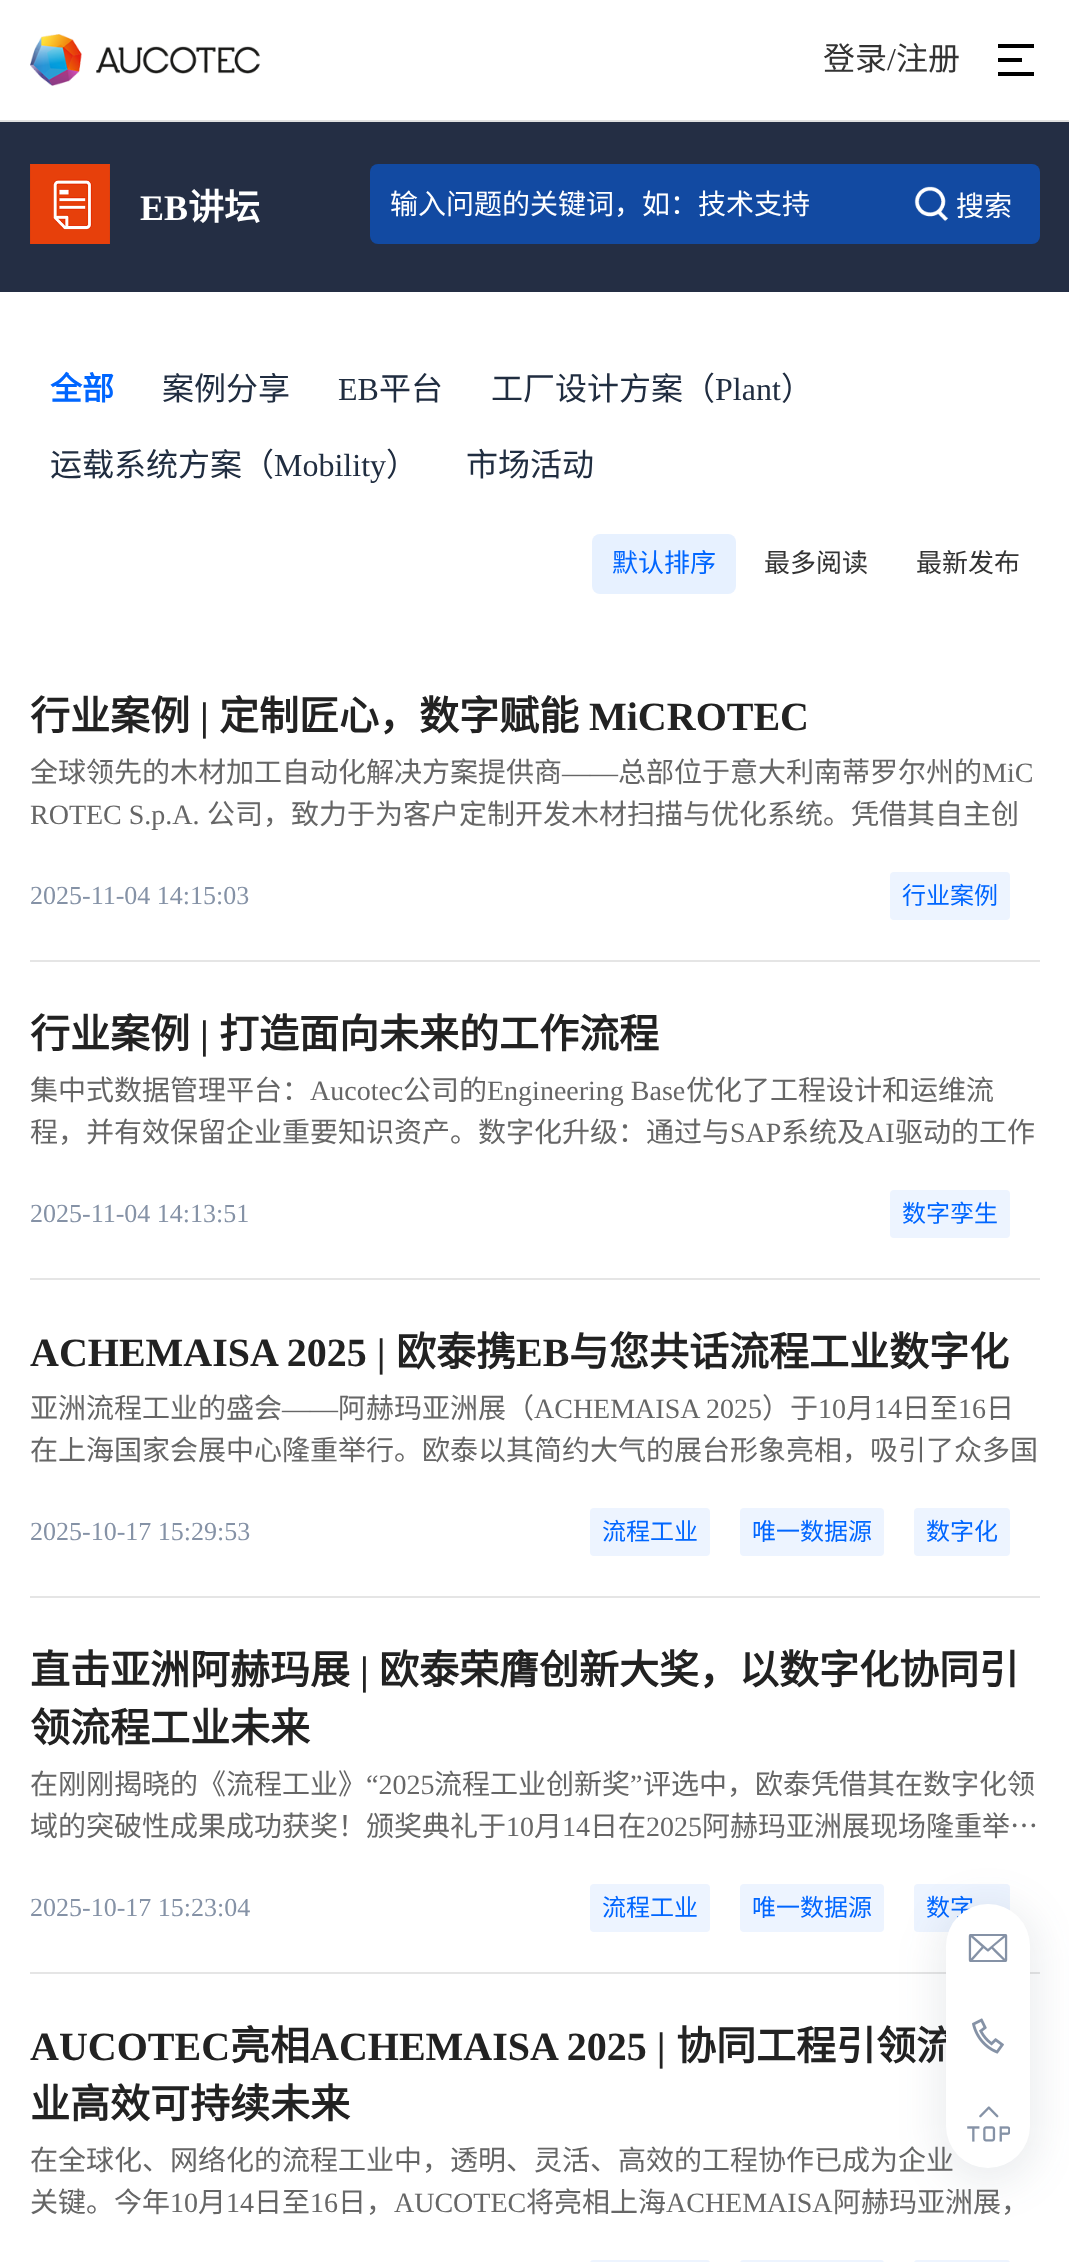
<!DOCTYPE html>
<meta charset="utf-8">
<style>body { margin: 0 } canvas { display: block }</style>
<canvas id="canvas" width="1069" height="2262"></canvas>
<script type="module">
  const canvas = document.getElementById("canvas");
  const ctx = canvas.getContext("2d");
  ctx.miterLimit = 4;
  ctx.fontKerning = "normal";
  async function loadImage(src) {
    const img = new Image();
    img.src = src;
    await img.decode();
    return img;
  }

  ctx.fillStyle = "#ffffff";
  ctx.fillRect(0, 0, 1069, 2262);
  ctx.fillStyle = "#e0e0e0";
  ctx.fillRect(0, 120, 1069, 2);
  ctx.drawImage(await loadImage("img1.png"), 30, 34, 230, 52);
  ctx.font = "32px Noto Sans CJK SC";
  ctx.fillStyle = "#333333";
  ctx.fillText("登录", 823, 70);
  ctx.font = "32px Liberation Serif";
  ctx.fillText("/", 887, 70);
  ctx.font = "32px Noto Sans CJK SC";
  ctx.fillText("注册", 896, 70);
  ctx.fillStyle = "#000000";
  ctx.beginPath();
  ctx.moveTo(998, 44);
  ctx.lineTo(1034, 44);
  ctx.lineTo(1034, 48);
  ctx.lineTo(998, 48);
  ctx.closePath();
  ctx.moveTo(998, 58);
  ctx.lineTo(1022, 58);
  ctx.lineTo(1022, 62);
  ctx.lineTo(998, 62);
  ctx.closePath();
  ctx.moveTo(998, 72);
  ctx.lineTo(1034, 72);
  ctx.lineTo(1034, 76);
  ctx.lineTo(998, 76);
  ctx.closePath();
  ctx.fill();
  ctx.fillStyle = "#242e44";
  ctx.fillRect(0, 122, 1069, 170);
  ctx.drawImage(await loadImage("img2.png"), 30, 164, 80, 80);
  ctx.font = "bold 36px Liberation Serif";
  ctx.fillStyle = "#ffffff";
  ctx.fillText("EB", 140, 220);
  ctx.font = "bold 36px Noto Sans CJK SC";
  ctx.fillText("讲坛", 188, 220);
  ctx.fillStyle = "#124aa2";
  ctx.beginPath();
  ctx.roundRect(370, 164, 670, 80, 8);
  ctx.fill();
  ctx.font = "28px Noto Sans CJK SC";
  ctx.fillStyle = "#ffffff";
  ctx.fillText("输入问题的关键词，如：技术支持", 390, 214);
  ctx.drawImage(await loadImage("img3.png"), 914, 186, 35, 36);
  ctx.fillText("搜索", 956, 216);
  ctx.font = "bold 32px Noto Sans CJK SC";
  ctx.fillStyle = "#0066ff";
  ctx.fillText("全部", 50, 400);
  ctx.font = "32px Noto Sans CJK SC";
  ctx.fillStyle = "#202d40";
  ctx.fillText("案例分享", 162, 400);
  ctx.font = "32px Liberation Serif";
  ctx.fillText("EB", 338, 400);
  ctx.font = "32px Noto Sans CJK SC";
  ctx.fillText("平台", 379, 400);
  ctx.fillText("工厂设计方案（", 491, 400);
  ctx.font = "32px Liberation Serif";
  ctx.fillText("Plant", 715, 400);
  ctx.font = "32px Noto Sans CJK SC";
  ctx.fillText("）", 781, 400);
  ctx.fillText("运载系统方案（", 50, 476);
  ctx.font = "32px Liberation Serif";
  ctx.fillText("Mobility", 274, 476);
  ctx.font = "32px Noto Sans CJK SC";
  ctx.fillText("）", 386, 476);
  ctx.fillText("市场活动", 466, 476);
  ctx.fillStyle = "#e7f1ff";
  ctx.beginPath();
  ctx.roundRect(592, 534, 144, 60, 8);
  ctx.fill();
  ctx.font = "26px Noto Sans CJK SC";
  ctx.fillStyle = "#0066ff";
  ctx.fillText("默认排序", 612, 572);
  ctx.fillStyle = "#333333";
  ctx.fillText("最多阅读", 764, 572);
  ctx.fillText("最新发布", 916, 572);
  ctx.fillStyle = "#e5e5e5";
  ctx.fillRect(30, 960, 1010, 2);
  ctx.font = "bold 40px Noto Sans CJK SC";
  ctx.fillStyle = "#222222";
  ctx.fillText("行业案例", 30, 730);
  ctx.font = "bold 40px Liberation Serif";
  ctx.fillText("|", 200, 730);
  ctx.font = "bold 40px Noto Sans CJK SC";
  ctx.fillText("定制匠心，数字赋能", 219, 730);
  ctx.font = "bold 40px Liberation Serif";
  ctx.fillText("MiCROTEC", 589, 730);
  ctx.font = "28px Noto Sans CJK SC";
  ctx.fillStyle = "#666666";
  ctx.fillText("全球领先的木材加工自动化解决方案提供商", 30, 782);
  ctx.font = "28px Liberation Serif";
  ctx.fillText("——", 562, 782);
  ctx.font = "28px Noto Sans CJK SC";
  ctx.fillText("总部位于意大利南蒂罗尔州的", 618, 782);
  ctx.font = "28px Liberation Serif";
  ctx.fillText("MiC", 982, 782);
  ctx.fillText("ROTEC S.p.A.", 30, 824);
  ctx.font = "28px Noto Sans CJK SC";
  ctx.fillText("公司，致力于为客户定制开发木材扫描与优化系统。凭借其自主创", 207, 824);
  ctx.font = "26px Liberation Serif";
  ctx.fillStyle = "#8592a6";
  ctx.fillText("2025-11-04 14:15:03", 30, 904);
  ctx.fillStyle = "#edf4ff";
  ctx.beginPath();
  ctx.roundRect(890, 872, 120, 48, 4);
  ctx.fill();
  ctx.font = "24px Noto Sans CJK SC";
  ctx.fillStyle = "#0066ff";
  ctx.fillText("行业案例", 902, 904);
  ctx.fillStyle = "#e5e5e5";
  ctx.fillRect(30, 1278, 1010, 2);
  ctx.font = "bold 40px Noto Sans CJK SC";
  ctx.fillStyle = "#222222";
  ctx.fillText("行业案例", 30, 1048);
  ctx.font = "bold 40px Liberation Serif";
  ctx.fillText("|", 200, 1048);
  ctx.font = "bold 40px Noto Sans CJK SC";
  ctx.fillText("打造面向未来的工作流程", 219, 1048);
  ctx.font = "28px Noto Sans CJK SC";
  ctx.fillStyle = "#666666";
  ctx.fillText("集中式数据管理平台：", 30, 1100);
  ctx.font = "28px Liberation Serif";
  ctx.fillText("Aucotec", 310, 1100);
  ctx.font = "28px Noto Sans CJK SC";
  ctx.fillText("公司的", 403, 1100);
  ctx.font = "28px Liberation Serif";
  ctx.fillText("Engineering Base", 487, 1100);
  ctx.font = "28px Noto Sans CJK SC";
  ctx.fillText("优化了工程设计和运维流", 686, 1100);
  ctx.fillText("程，并有效保留企业重要知识资产。数字化升级：通过与", 30, 1142);
  ctx.font = "28px Liberation Serif";
  ctx.fillText("SAP", 730, 1142);
  ctx.font = "28px Noto Sans CJK SC";
  ctx.fillText("系统及", 781, 1142);
  ctx.font = "28px Liberation Serif";
  ctx.fillText("AI", 865, 1142);
  ctx.font = "28px Noto Sans CJK SC";
  ctx.fillText("驱动的工作", 895, 1142);
  ctx.font = "26px Liberation Serif";
  ctx.fillStyle = "#8592a6";
  ctx.fillText("2025-11-04 14:13:51", 30, 1222);
  ctx.fillStyle = "#edf4ff";
  ctx.beginPath();
  ctx.roundRect(890, 1190, 120, 48, 4);
  ctx.fill();
  ctx.font = "24px Noto Sans CJK SC";
  ctx.fillStyle = "#0066ff";
  ctx.fillText("数字孪生", 902, 1222);
  ctx.fillStyle = "#e5e5e5";
  ctx.fillRect(30, 1596, 1010, 2);
  ctx.font = "bold 40px Liberation Serif";
  ctx.fillStyle = "#222222";
  ctx.fillText("ACHEMAISA 2025 |", 30, 1366);
  ctx.font = "bold 40px Noto Sans CJK SC";
  ctx.fillText("欧泰携", 396, 1366);
  ctx.font = "bold 40px Liberation Serif";
  ctx.fillText("EB", 516, 1366);
  ctx.font = "bold 40px Noto Sans CJK SC";
  ctx.fillText("与您共话流程工业数字化", 569, 1366);
  ctx.font = "28px Noto Sans CJK SC";
  ctx.fillStyle = "#666666";
  ctx.fillText("亚洲流程工业的盛会", 30, 1418);
  ctx.font = "28px Liberation Serif";
  ctx.fillText("——", 282, 1418);
  ctx.font = "28px Noto Sans CJK SC";
  ctx.fillText("阿赫玛亚洲展（", 338, 1418);
  ctx.font = "28px Liberation Serif";
  ctx.fillText("ACHEMAISA 2025", 534, 1418);
  ctx.font = "28px Noto Sans CJK SC";
  ctx.fillText("）于", 762, 1418);
  ctx.font = "28px Liberation Serif";
  ctx.fillText("10", 818, 1418);
  ctx.font = "28px Noto Sans CJK SC";
  ctx.fillText("月", 846, 1418);
  ctx.font = "28px Liberation Serif";
  ctx.fillText("14", 874, 1418);
  ctx.font = "28px Noto Sans CJK SC";
  ctx.fillText("日至", 902, 1418);
  ctx.font = "28px Liberation Serif";
  ctx.fillText("16", 958, 1418);
  ctx.font = "28px Noto Sans CJK SC";
  ctx.fillText("日", 986, 1418);
  ctx.fillText("在上海国家会展中心隆重举行。欧泰以其简约大气的展台形象亮相，吸引了众多国", 30, 1460);
  ctx.font = "26px Liberation Serif";
  ctx.fillStyle = "#8592a6";
  ctx.fillText("2025-10-17 15:29:53", 30, 1540);
  ctx.fillStyle = "#edf4ff";
  ctx.beginPath();
  ctx.roundRect(590, 1508, 120, 48, 4);
  ctx.fill();
  ctx.font = "24px Noto Sans CJK SC";
  ctx.fillStyle = "#0066ff";
  ctx.fillText("流程工业", 602, 1540);
  ctx.fillStyle = "#edf4ff";
  ctx.beginPath();
  ctx.roundRect(740, 1508, 144, 48, 4);
  ctx.fill();
  ctx.fillStyle = "#0066ff";
  ctx.fillText("唯一数据源", 752, 1540);
  ctx.fillStyle = "#edf4ff";
  ctx.beginPath();
  ctx.roundRect(914, 1508, 96, 48, 4);
  ctx.fill();
  ctx.fillStyle = "#0066ff";
  ctx.fillText("数字化", 926, 1540);
  ctx.fillStyle = "#e5e5e5";
  ctx.fillRect(30, 1972, 1010, 2);
  ctx.font = "bold 40px Noto Sans CJK SC";
  ctx.fillStyle = "#222222";
  ctx.fillText("直击亚洲阿赫玛展", 30, 1684);
  ctx.font = "bold 40px Liberation Serif";
  ctx.fillText("|", 360, 1684);
  ctx.font = "bold 40px Noto Sans CJK SC";
  ctx.fillText("欧泰荣膺创新大奖，以数字化协同引", 379, 1684);
  ctx.fillText("领流程工业未来", 30, 1742);
  ctx.font = "28px Noto Sans CJK SC";
  ctx.fillStyle = "#666666";
  ctx.fillText("在刚刚揭晓的《流程工业》", 30, 1794);
  ctx.font = "28px Liberation Serif";
  ctx.fillText("“2025", 366, 1794);
  ctx.font = "28px Noto Sans CJK SC";
  ctx.fillText("流程工业创新奖", 434, 1794);
  ctx.font = "28px Liberation Serif";
  ctx.fillText("”", 630, 1794);
  ctx.font = "28px Noto Sans CJK SC";
  ctx.fillText("评选中，欧泰凭借其在数字化领", 643, 1794);
  ctx.fillText("域的突破性成果成功获奖！颁奖典礼于", 30, 1836);
  ctx.font = "28px Liberation Serif";
  ctx.fillText("10", 506, 1836);
  ctx.font = "28px Noto Sans CJK SC";
  ctx.fillText("月", 534, 1836);
  ctx.font = "28px Liberation Serif";
  ctx.fillText("14", 562, 1836);
  ctx.font = "28px Noto Sans CJK SC";
  ctx.fillText("日在", 590, 1836);
  ctx.font = "28px Liberation Serif";
  ctx.fillText("2025", 646, 1836);
  ctx.font = "28px Noto Sans CJK SC";
  ctx.fillText("阿赫玛亚洲展现场隆重举…", 702, 1836);
  ctx.font = "26px Liberation Serif";
  ctx.fillStyle = "#8592a6";
  ctx.fillText("2025-10-17 15:23:04", 30, 1916);
  ctx.fillStyle = "#edf4ff";
  ctx.beginPath();
  ctx.roundRect(590, 1884, 120, 48, 4);
  ctx.fill();
  ctx.font = "24px Noto Sans CJK SC";
  ctx.fillStyle = "#0066ff";
  ctx.fillText("流程工业", 602, 1916);
  ctx.fillStyle = "#edf4ff";
  ctx.beginPath();
  ctx.roundRect(740, 1884, 144, 48, 4);
  ctx.fill();
  ctx.fillStyle = "#0066ff";
  ctx.fillText("唯一数据源", 752, 1916);
  ctx.fillStyle = "#edf4ff";
  ctx.beginPath();
  ctx.roundRect(914, 1884, 96, 48, 4);
  ctx.fill();
  ctx.fillStyle = "#0066ff";
  ctx.fillText("数字", 926, 1916);
  ctx.font = "bold 40px Liberation Serif";
  ctx.fillStyle = "#222222";
  ctx.fillText("AUCOTEC", 30, 2060);
  ctx.font = "bold 40px Noto Sans CJK SC";
  ctx.fillText("亮相", 230, 2060);
  ctx.font = "bold 40px Liberation Serif";
  ctx.fillText("ACHEMAISA 2025 |", 310, 2060);
  ctx.font = "bold 40px Noto Sans CJK SC";
  ctx.fillText("协同工程引领流", 676, 2060);
  ctx.fillText("业高效可持续未来", 30, 2118);
  ctx.font = "28px Noto Sans CJK SC";
  ctx.fillStyle = "#666666";
  ctx.fillText("在全球化、网络化的流程工业中，透明、灵活、高效的工程协作已成为企业", 30, 2170);
  ctx.fillText("关键。今年", 30, 2212);
  ctx.font = "28px Liberation Serif";
  ctx.fillText("10", 170, 2212);
  ctx.font = "28px Noto Sans CJK SC";
  ctx.fillText("月", 198, 2212);
  ctx.font = "28px Liberation Serif";
  ctx.fillText("14", 226, 2212);
  ctx.font = "28px Noto Sans CJK SC";
  ctx.fillText("日至", 254, 2212);
  ctx.font = "28px Liberation Serif";
  ctx.fillText("16", 310, 2212);
  ctx.font = "28px Noto Sans CJK SC";
  ctx.fillText("日，", 338, 2212);
  ctx.font = "28px Liberation Serif";
  ctx.fillText("AUCOTEC", 394, 2212);
  ctx.font = "28px Noto Sans CJK SC";
  ctx.fillText("将亮相上海", 526, 2212);
  ctx.font = "28px Liberation Serif";
  ctx.fillText("ACHEMAISA", 666, 2212);
  ctx.font = "28px Noto Sans CJK SC";
  ctx.fillText("阿赫玛亚洲展，", 833, 2212);
  ctx.fillStyle = "#edf4ff";
  ctx.beginPath();
  ctx.roundRect(590, 2260, 120, 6, 4);
  ctx.fill();
  ctx.beginPath();
  ctx.roundRect(740, 2260, 144, 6, 4);
  ctx.fill();
  ctx.beginPath();
  ctx.roundRect(914, 2260, 96, 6, 4);
  ctx.fill();
  ctx.fillStyle = "rgba(61, 78, 102, 0.1)";
  ctx.filter = "blur(20px)";
  ctx.beginPath();
  ctx.roundRect(938, 1904, 100, 280, 50);
  ctx.fill();
  ctx.filter = "none";
  ctx.fillStyle = "#ffffff";
  ctx.beginPath();
  ctx.roundRect(946, 1904, 84, 264, 42);
  ctx.fill();
  ctx.drawImage(await loadImage("img4.png"), 968, 1934, 40, 28);
  ctx.drawImage(await loadImage("img5.png"), 972, 2018, 32, 36);
  ctx.drawImage(await loadImage("img6.png"), 967, 2106, 43, 36);
</script>
